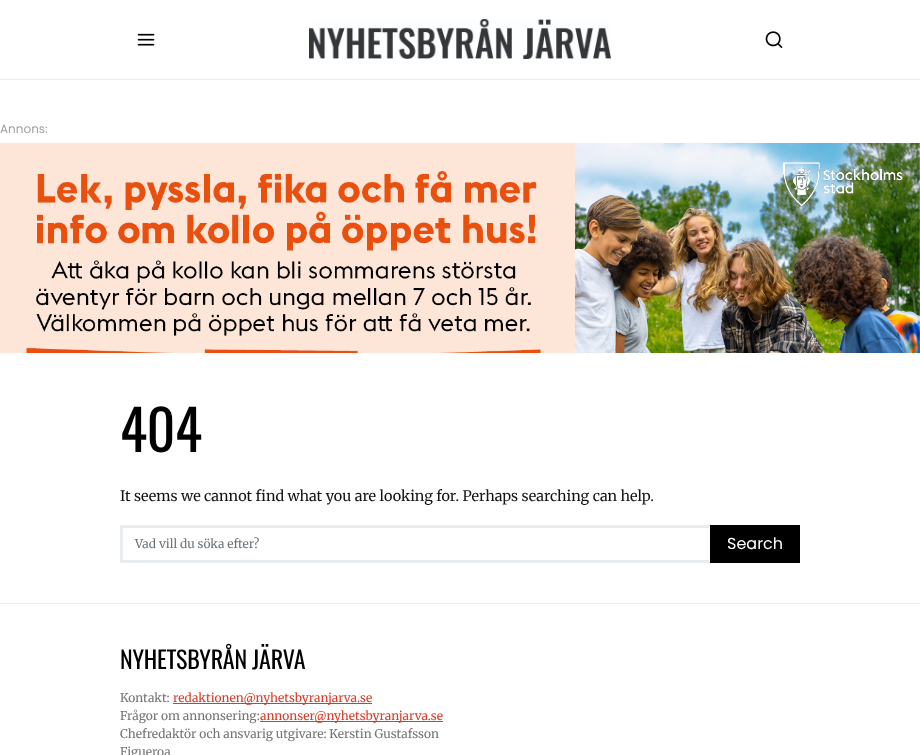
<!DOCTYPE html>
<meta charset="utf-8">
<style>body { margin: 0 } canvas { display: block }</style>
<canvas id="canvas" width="920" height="755"></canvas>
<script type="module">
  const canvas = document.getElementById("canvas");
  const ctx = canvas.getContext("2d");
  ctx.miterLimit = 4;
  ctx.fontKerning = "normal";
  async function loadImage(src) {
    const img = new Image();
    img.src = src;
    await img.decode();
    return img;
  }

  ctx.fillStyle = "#ffffff";
  ctx.fillRect(0, 0, 920, 755);
  ctx.fillStyle = "#e9ecef";
  ctx.fillRect(0, 79, 920, 1);
  ctx.drawImage(await loadImage("img1.png"), 137, 33, 18, 13);
  ctx.drawImage(await loadImage("img2.png"), 309, 19, 302, 40);
  ctx.drawImage(await loadImage("img3.png"), 765, 31, 18, 17);
  ctx.font = "12px Poppins";
  ctx.fillStyle = "#a0a0a0";
  ctx.fillText("Annons:", 0, 133);
  ctx.drawImage(await loadImage("img4.png"), 0, 143, 920, 210);
  ctx.letterSpacing = "-0.5px";
  ctx.font = "56px Oswald";
  ctx.fillStyle = "#000000";
  ctx.fillText("404", 120, 452);
  ctx.letterSpacing = "0px";
  ctx.font = "14.4px Merriweather";
  ctx.fillStyle = "#121416";
  ctx.fillText("It seems we cannot find what you are looking for. Perhaps searching can help.", 120, 501);
  ctx.fillStyle = "#e9ecef";
  ctx.fillRect(120, 525, 590, 38);
  ctx.fillStyle = "#ffffff";
  ctx.fillRect(123, 528, 587, 32);
  ctx.font = "12px Merriweather";
  ctx.fillStyle = "#6c757d";
  ctx.fillText("Vad vill du söka efter?", 135, 548);
  ctx.fillStyle = "#000000";
  ctx.fillRect(710, 525, 90, 38);
  ctx.font = "16px Poppins";
  ctx.fillStyle = "#ffffff";
  ctx.fillText("Search", 727, 549);
  ctx.fillStyle = "#e9ecef";
  ctx.fillRect(0, 603, 920, 1);
  ctx.letterSpacing = "-0.25px";
  ctx.font = "24px Oswald";
  ctx.fillStyle = "#000000";
  ctx.fillText("NYHETSBYRÅN JÄRVA", 120, 669);
  ctx.letterSpacing = "0px";
  ctx.font = "12px Merriweather";
  ctx.fillStyle = "#757575";
  ctx.fillText("Kontakt:", 120, 702);
  ctx.fillStyle = "#d73c28";
  ctx.fillRect(173, 703, 199, 1);
  ctx.fillText("redaktionen@nyhetsbyranjarva.se", 173, 702);
  ctx.fillStyle = "#757575";
  ctx.fillText("Frågor om annonsering:", 120, 720);
  ctx.fillStyle = "#d73c28";
  ctx.fillRect(260, 721, 183, 1);
  ctx.fillText("annonser@nyhetsbyranjarva.se", 260, 720);
  ctx.fillStyle = "#757575";
  ctx.fillText("Chefredaktör och ansvarig utgivare: Kerstin Gustafsson", 120, 738);
  ctx.fillText("Figueroa", 120, 756);
</script>
